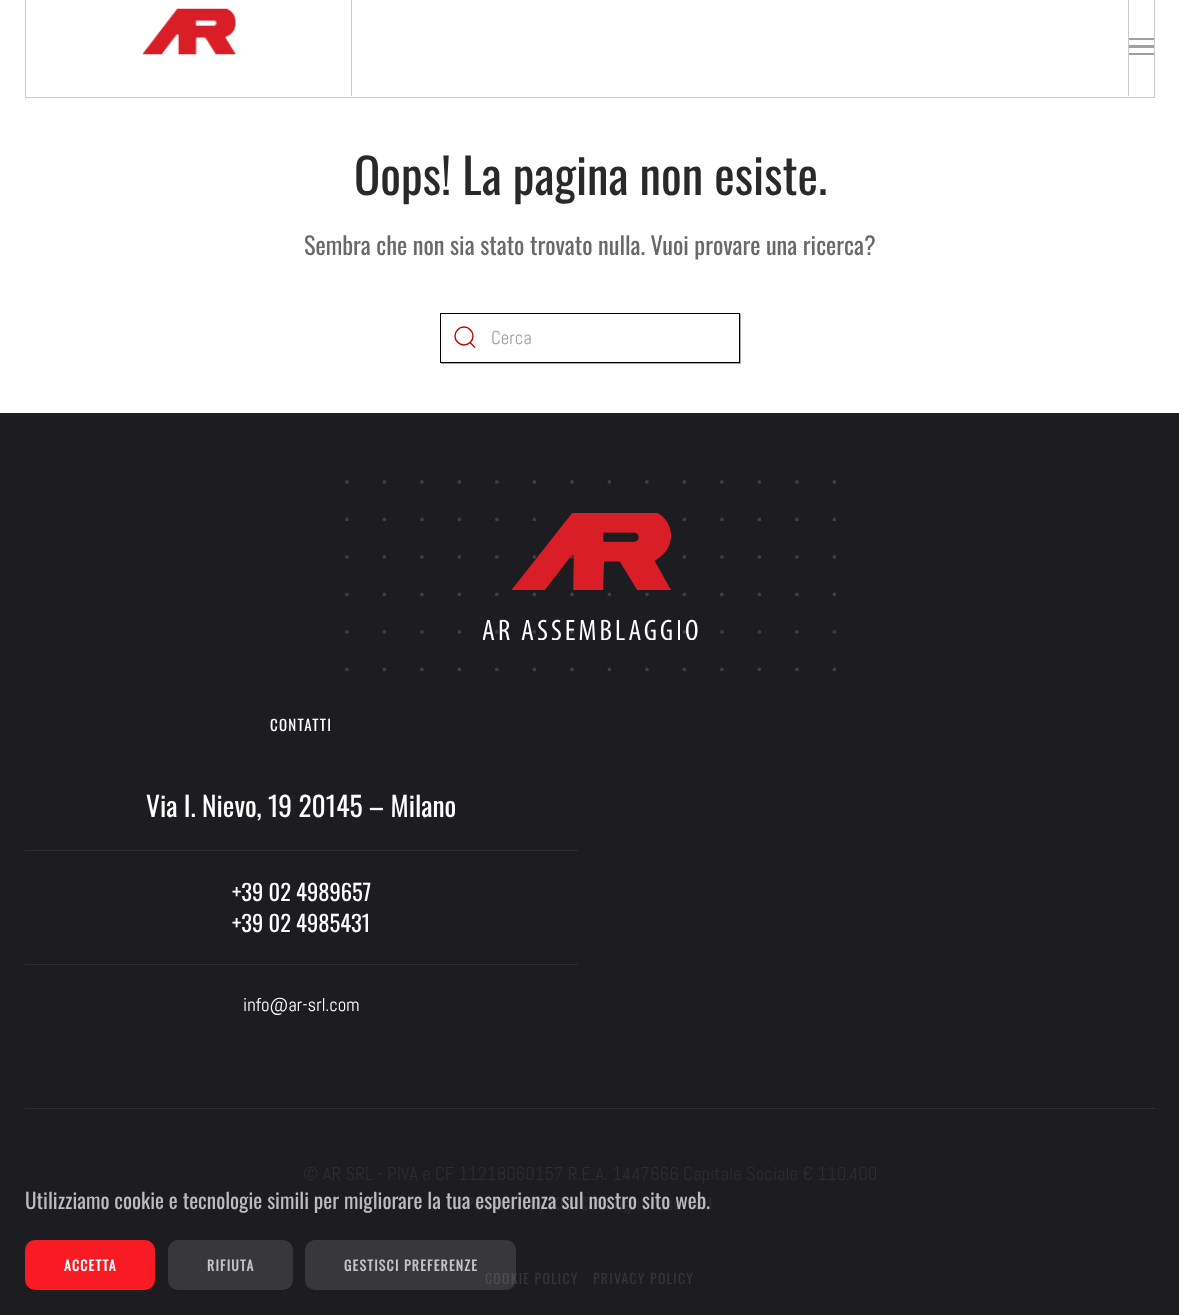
<!DOCTYPE html>
<meta charset="utf-8">
<style>body { margin: 0 } canvas { display: block }</style>
<canvas id="canvas" width="1179" height="1315"></canvas>
<script type="module">
  const canvas = document.getElementById("canvas");
  const ctx = canvas.getContext("2d");
  ctx.miterLimit = 4;
  ctx.fontKerning = "normal";
  async function loadImage(src) {
    const img = new Image();
    img.src = src;
    await img.decode();
    return img;
  }

  ctx.fillStyle = "#ffffff";
  ctx.fillRect(0, 0, 1179, 1315);
  ctx.strokeStyle = "#c9c9c9";
  ctx.strokeRect(25.5, -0.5, 1129, 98);
  ctx.fillStyle = "#c9c9c9";
  ctx.fillRect(351, 0, 1, 96);
  ctx.drawImage(await loadImage("img1.png"), 143, 8, 93, 47);
  ctx.fillRect(1128, 0, 1, 96);
  ctx.fillStyle = "#a0a0a0";
  ctx.fillRect(1129, 38, 25, 2);
  ctx.fillRect(1129, 45, 25, 3);
  ctx.fillRect(1129, 53, 25, 2);
  ctx.font = "48.75px Oswald";
  ctx.fillStyle = "#292929";
  ctx.fillText("Oops! La pagina non esiste.", 354, 195);
  ctx.font = "24.3px Oswald";
  ctx.fillStyle = "#696969";
  ctx.fillText("Sembra che non sia stato trovato nulla. Vuoi provare una ricerca?", 304, 255);
  ctx.fillStyle = "#a9a9a9";
  ctx.beginPath();
  ctx.moveTo(441, 362);
  ctx.lineTo(441, 364);
  ctx.lineTo(741, 364);
  ctx.lineTo(741, 314);
  ctx.lineTo(740, 314);
  ctx.lineTo(740, 362);
  ctx.closePath();
  ctx.fill();
  ctx.strokeStyle = "#000000";
  ctx.strokeRect(440.5, 313.5, 299, 49);
  ctx.beginPath();
  ctx.arc(464, 336, 9, 0, Math.PI * 2);
  ctx.strokeStyle = "#c60202";
  ctx.lineWidth = 1.4;
  ctx.stroke();
  ctx.beginPath();
  ctx.moveTo(470, 342.5);
  ctx.lineTo(475, 347.5);
  ctx.closePath();
  ctx.stroke();
  ctx.font = "18.75px Abel";
  ctx.fillStyle = "#a0a0a0";
  ctx.fillText("Cerca", 491, 344);
  ctx.fillStyle = "#1d1c21";
  ctx.fillRect(0, 413, 1179, 902);
  ctx.drawImage(await loadImage("img2.png"), 345, 480, 491, 192);
  ctx.drawImage(await loadImage("img3.png"), 483, 513, 215, 127);
  ctx.letterSpacing = "1.25px";
  ctx.font = "15px Oswald";
  ctx.fillStyle = "#ffffff";
  ctx.fillText("CONTATTI", 270, 731);
  ctx.letterSpacing = "0px";
  ctx.font = "27.5px Oswald";
  ctx.fillText("Via I. Nievo, 19 20145 – Milano", 146, 817);
  ctx.fillStyle = "#2f2e33";
  ctx.fillRect(25, 850, 553, 1);
  ctx.font = "22.5px Oswald";
  ctx.fillStyle = "#ffffff";
  ctx.fillText("+39 02 4989657", 232, 901);
  ctx.fillText("+39 02 4985431", 232, 932);
  ctx.fillStyle = "#2f2e33";
  ctx.fillRect(25, 964, 553, 1);
  ctx.font = "18.75px Abel";
  ctx.fillStyle = "#ffffff";
  ctx.fillText("info@ar-srl.com", 243, 1011);
  ctx.fillStyle = "#2f2e33";
  ctx.fillRect(25, 1108, 1130, 1);
  ctx.fillStyle = "#2e2d32";
  ctx.fillText("© AR SRL - P.IVA e CF 11218060157 R.E.A. 1447666 Capitale Sociale € 110.400", 303, 1180);
  ctx.fillText("Powered by", 464, 1210);
  ctx.fillStyle = "#363539";
  ctx.fillText("Klc", 550, 1210);
  ctx.fillStyle = "#2e2d32";
  ctx.fillText("©All right reserved", 577, 1210);
  ctx.letterSpacing = "1.25px";
  ctx.font = "13.75px Oswald";
  ctx.fillStyle = "#363539";
  ctx.fillText("COOKIE POLICY", 485, 1284);
  ctx.fillText("PRIVACY POLICY", 593, 1284);
  ctx.letterSpacing = "0px";
  ctx.font = "21.25px Oswald";
  ctx.fillStyle = "#bcbbbd";
  ctx.fillText("Utilizziamo cookie e tecnologie simili per migliorare la tua esperienza sul nostro sito web.", 25, 1209);
  ctx.fillStyle = "#f91b24";
  ctx.beginPath();
  ctx.roundRect(25, 1240, 130, 50, 10);
  ctx.fill();
  ctx.letterSpacing = "1.25px";
  ctx.font = "bold 13.75px Oswald";
  ctx.fillStyle = "#ffffff";
  ctx.fillText("ACCETTA", 64, 1271);
  ctx.fillStyle = "#38373c";
  ctx.beginPath();
  ctx.roundRect(168, 1240, 125, 50, 10);
  ctx.fill();
  ctx.fillStyle = "#c3c3c5";
  ctx.fillText("RIFIUTA", 207, 1271);
  ctx.fillStyle = "rgba(255, 255, 255, 0.12)";
  ctx.beginPath();
  ctx.roundRect(305, 1240, 211, 50, 10);
  ctx.fill();
  ctx.fillStyle = "#c3c3c5";
  ctx.fillText("GESTISCI PREFERENZE", 344, 1271);
</script>
